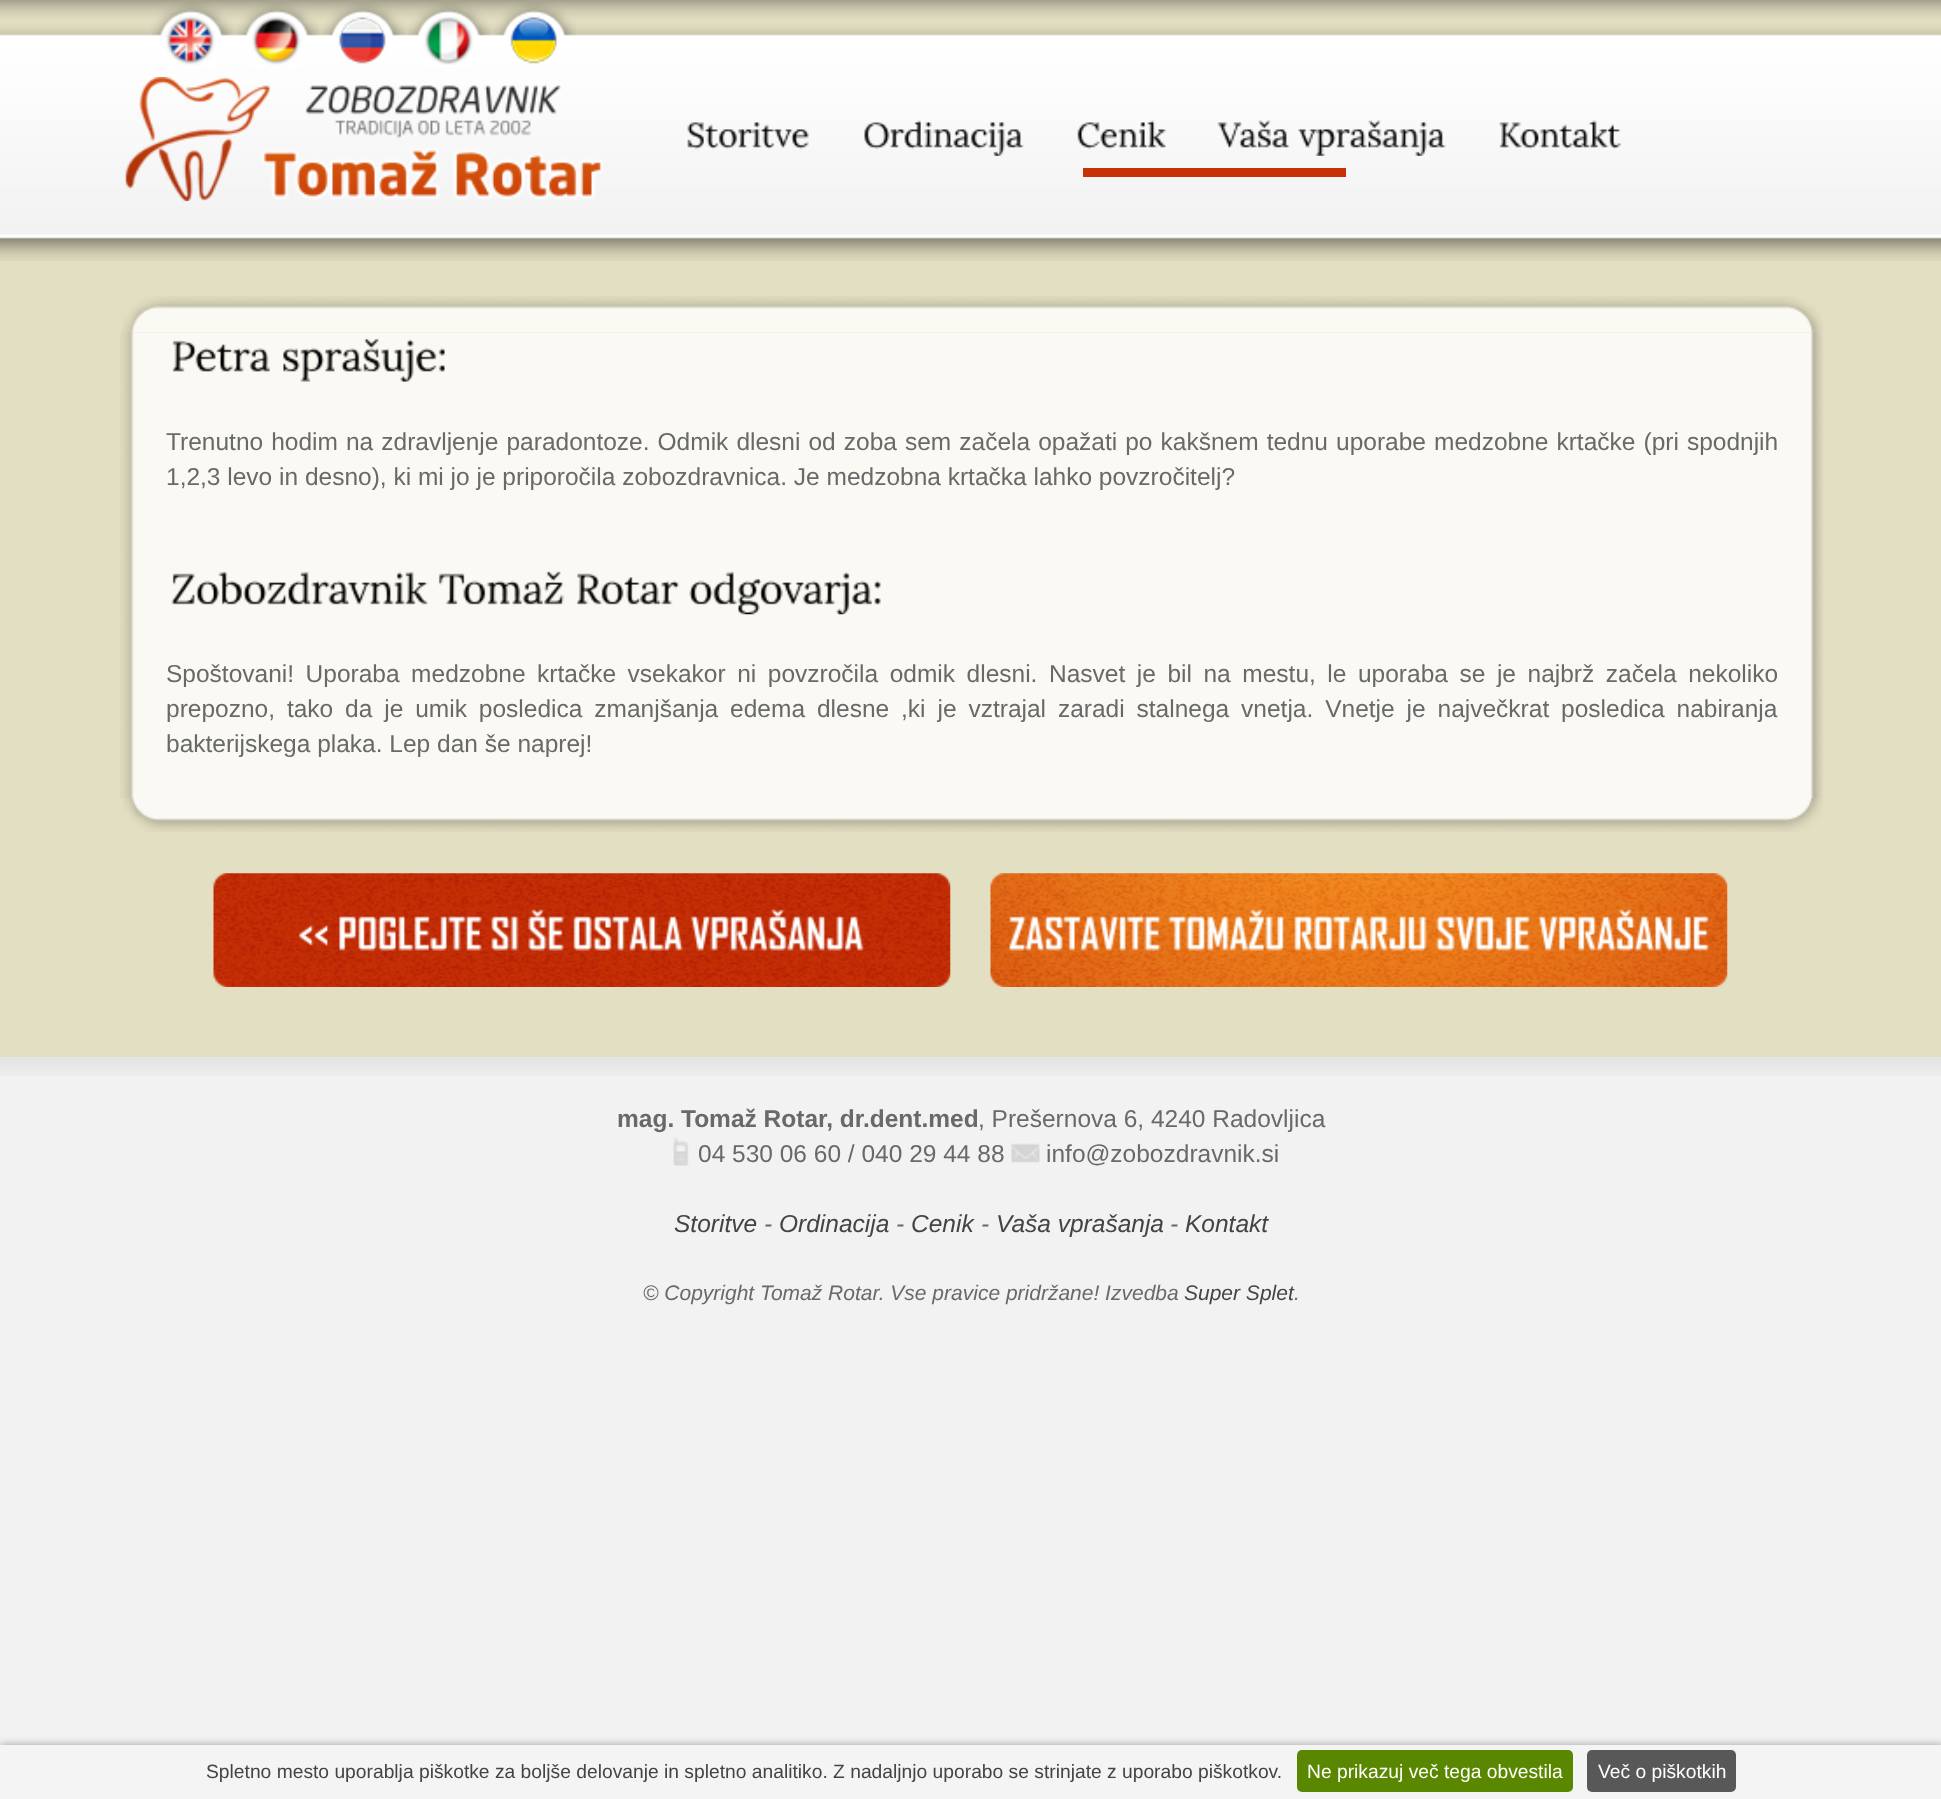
<!DOCTYPE html>
<meta charset="utf-8">
<style>body { margin: 0 } canvas { display: block }</style>
<canvas id="canvas" width="1941" height="1799"></canvas>
<script type="module">
  const canvas = document.getElementById("canvas");
  const ctx = canvas.getContext("2d");
  ctx.miterLimit = 4;
  ctx.fontKerning = "normal";
  async function loadImage(src) {
    const img = new Image();
    img.src = src;
    await img.decode();
    return img;
  }

  ctx.fillStyle = "#f2f2f2";
  ctx.fillRect(0, 0, 1941, 1799);
  ctx.fillStyle = "#e3dfc3";
  ctx.fillRect(0, 0, 1941, 1057);
  ctx.drawImage(await loadImage("img1.png"), 0, 0, 1941, 261);
  ctx.drawImage(await loadImage("img2.png"), 151, 2, 82, 64);
  ctx.drawImage(await loadImage("img3.png"), 237, 2, 82, 64);
  ctx.drawImage(await loadImage("img4.png"), 323, 2, 82, 62);
  ctx.drawImage(await loadImage("img5.png"), 408, 2, 83, 63);
  ctx.drawImage(await loadImage("img6.png"), 494, 2, 82, 62);
  ctx.drawImage(await loadImage("img7.png"), 125, 77, 478, 125);
  ctx.drawImage(await loadImage("img8.png"), 687, 122, 122, 28);
  ctx.drawImage(await loadImage("img9.png"), 864, 120, 160, 36);
  ctx.drawImage(await loadImage("img10.png"), 1077, 120, 89, 30);
  ctx.drawImage(await loadImage("img11.png"), 1217, 120, 73, 28);
  ctx.drawImage(await loadImage("img12.png"), 1298, 120, 148, 36);
  ctx.drawImage(await loadImage("img13.png"), 1499, 120, 122, 29);
  ctx.fillStyle = "#c63205";
  ctx.fillRect(1083, 168, 263, 9);
  ctx.drawImage(await loadImage("img15.png"), 120, 332, 1703, 466);
  ctx.drawImage(await loadImage("img14.png"), 122, 296, 1701, 37);
  ctx.drawImage(await loadImage("img16.png"), 172, 340, 98, 32);
  ctx.drawImage(await loadImage("img17.png"), 283, 338, 162, 44);
  ctx.wordSpacing = "1.25px";
  ctx.font = "24.5px Liberation Sans";
  ctx.fillStyle = "#696969";
  ctx.fillText("Trenutno hodim na zdravljenje paradontoze. Odmik dlesni od zoba sem začela opažati po kakšnem tednu uporabe medzobne krtačke (pri spodnjih", 166, 450);
  ctx.wordSpacing = "0px";
  ctx.fillText("1,2,3 levo in desno), ki mi jo je priporočila zobozdravnica. Je medzobna krtačka lahko povzročitelj?", 166, 485);
  ctx.drawImage(await loadImage("img18.png"), 171, 571, 257, 34);
  ctx.drawImage(await loadImage("img19.png"), 438, 571, 126, 34);
  ctx.drawImage(await loadImage("img20.png"), 577, 573, 103, 32);
  ctx.drawImage(await loadImage("img21.png"), 689, 571, 192, 44);
  ctx.wordSpacing = "4.75px";
  ctx.fillText("Spoštovani! Uporaba medzobne krtačke vsekakor ni povzročila odmik dlesni. Nasvet je bil na mestu, le uporaba se je najbrž začela nekoliko", 166, 682);
  ctx.wordSpacing = "5.1px";
  ctx.fillText("prepozno, tako da je umik posledica zmanjšanja edema dlesne ,ki je vztrajal zaradi stalnega vnetja. Vnetje je največkrat posledica nabiranja", 166, 717);
  ctx.wordSpacing = "0px";
  ctx.fillText("bakterijskega plaka. Lep dan še naprej!", 166, 752);
  ctx.drawImage(await loadImage("img22.png"), 123, 798, 1700, 34);
  ctx.drawImage(await loadImage("img23.png"), 213, 873, 738, 114);
  ctx.drawImage(await loadImage("img24.png"), 990, 873, 738, 114);
  ctx.drawImage(await loadImage("img25.png"), 0, 1057, 1941, 19);
  ctx.font = "bold 24.5px Liberation Sans";
  ctx.fillText("mag. Tomaž Rotar, dr.dent.med", 617, 1127);
  ctx.font = "24.5px Liberation Sans";
  ctx.fillText(", Prešernova 6, 4240 Radovljica", 978, 1127);
  ctx.drawImage(await loadImage("img26.png"), 673, 1137, 16, 29);
  ctx.fillText("04 530 06 60 / 040 29 44 88", 698, 1162);
  ctx.drawImage(await loadImage("img27.png"), 1011, 1143, 29, 20);
  ctx.fillText("info@zobozdravnik.si", 1046, 1162);
  ctx.font = "italic 24.5px Liberation Sans";
  ctx.fillStyle = "#444444";
  ctx.fillText("Storitve", 674, 1232);
  ctx.fillStyle = "#696969";
  ctx.fillText("-", 764, 1232);
  ctx.fillStyle = "#444444";
  ctx.fillText("Ordinacija", 779, 1232);
  ctx.fillStyle = "#696969";
  ctx.fillText("-", 896, 1232);
  ctx.fillStyle = "#444444";
  ctx.fillText("Cenik", 911, 1232);
  ctx.fillStyle = "#696969";
  ctx.fillText("-", 981, 1232);
  ctx.fillStyle = "#444444";
  ctx.fillText("Vaša vprašanja", 996, 1232);
  ctx.fillStyle = "#696969";
  ctx.fillText("-", 1170, 1232);
  ctx.fillStyle = "#444444";
  ctx.fillText("Kontakt", 1185, 1232);
  ctx.font = "italic 21px Liberation Sans";
  ctx.fillStyle = "#696969";
  ctx.fillText("© Copyright Tomaž Rotar. Vse pravice pridržane! Izvedba", 643, 1300);
  ctx.fillStyle = "#444444";
  ctx.fillText("Super Splet", 1184, 1300);
  ctx.fillStyle = "#696969";
  ctx.fillText(".", 1294, 1300);
  ctx.fillStyle = "rgba(136, 136, 136, 0.8)";
  ctx.filter = "blur(4.5px)";
  ctx.beginPath();
  ctx.rect(0, 1745, 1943, 54);
  ctx.fill();
  ctx.filter = "none";
  ctx.fillStyle = "#f4f4f4";
  ctx.fillRect(0, 1745, 1941, 54);
  ctx.font = "19.25px Liberation Sans";
  ctx.fillStyle = "#444444";
  ctx.fillText("Spletno mesto uporablja piškotke za boljše delovanje in spletno analitiko. Z nadaljnjo uporabo se strinjate z uporabo piškotkov.", 206, 1778);
  ctx.fillStyle = "#5a8700";
  ctx.beginPath();
  ctx.roundRect(1297, 1750, 276, 42, 5);
  ctx.fill();
  ctx.fillStyle = "#ffffff";
  ctx.fillText("Ne prikazuj več tega obvestila", 1307, 1778);
  ctx.fillStyle = "#585858";
  ctx.beginPath();
  ctx.roundRect(1587, 1750, 149, 42, 5);
  ctx.fill();
  ctx.fillStyle = "#ffffff";
  ctx.fillText("Več o piškotkih", 1598, 1778);
</script>
